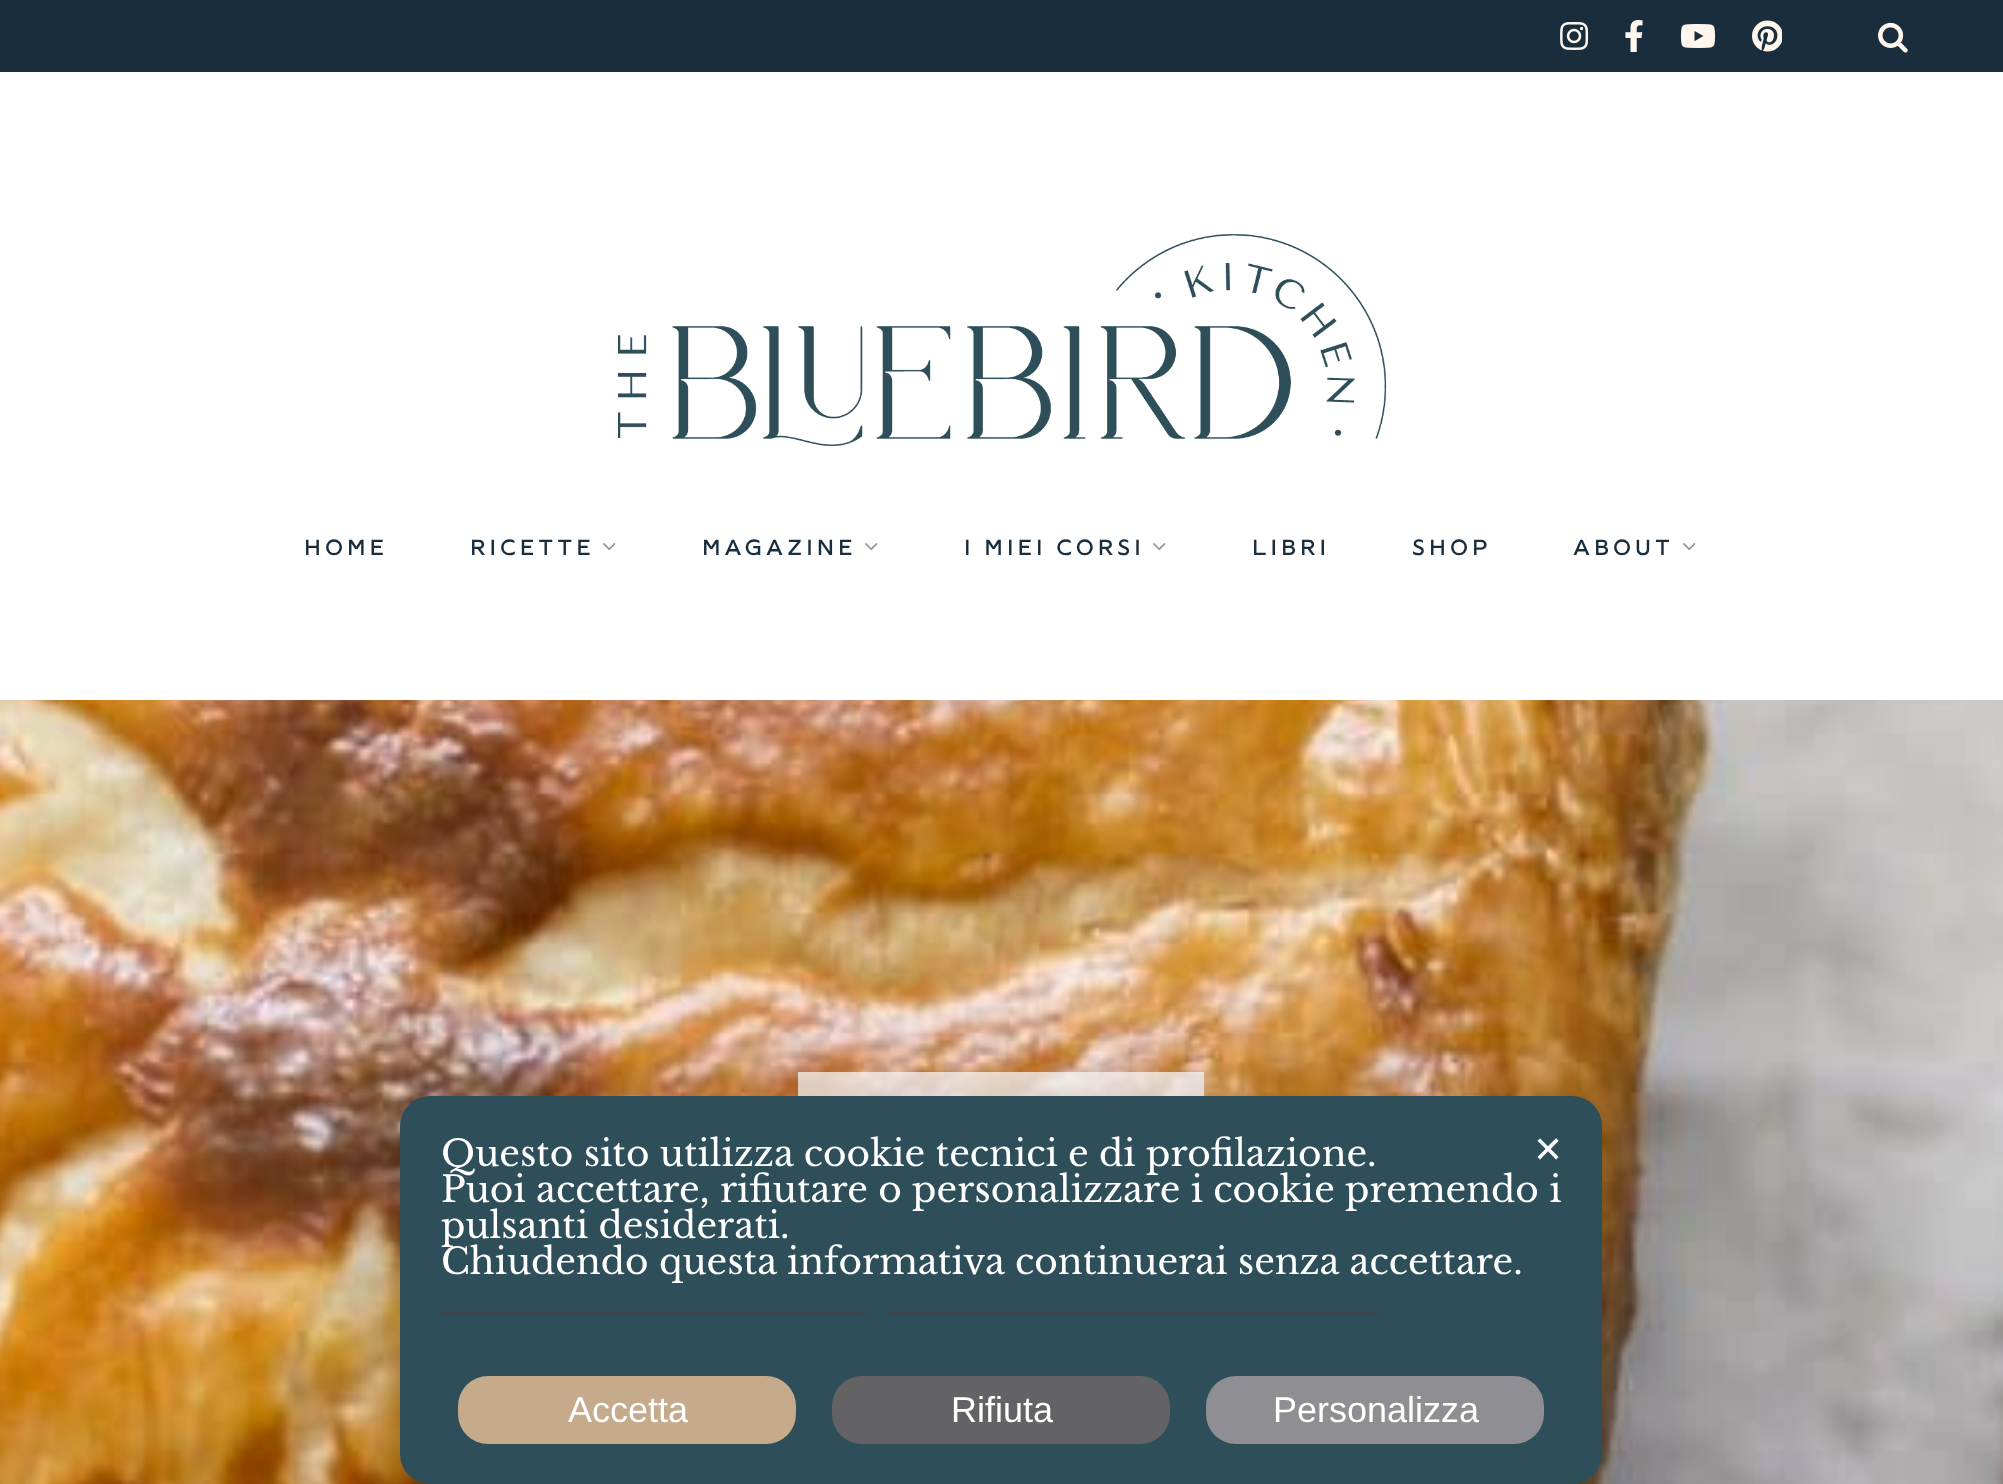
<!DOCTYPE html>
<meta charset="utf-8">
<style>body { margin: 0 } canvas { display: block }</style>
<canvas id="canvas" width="2003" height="1484"></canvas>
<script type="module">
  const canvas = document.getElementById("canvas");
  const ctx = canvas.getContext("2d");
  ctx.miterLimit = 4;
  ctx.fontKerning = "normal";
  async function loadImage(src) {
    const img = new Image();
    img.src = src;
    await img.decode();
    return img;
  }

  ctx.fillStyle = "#ffffff";
  ctx.fillRect(0, 0, 2003, 1484);
  ctx.fillStyle = "#1a2d3c";
  ctx.fillRect(0, 0, 2003, 72);
  ctx.drawImage(await loadImage("img1.png"), 1560, 22, 29, 28);
  ctx.drawImage(await loadImage("img2.png"), 1625, 20, 18, 32);
  ctx.drawImage(await loadImage("img3.png"), 1680, 24, 36, 24);
  ctx.drawImage(await loadImage("img4.png"), 1752, 20, 30, 32);
  ctx.drawImage(await loadImage("img5.png"), 1878, 22, 30, 31);
  ctx.drawImage(await loadImage("img6.png"), 618, 234, 769, 213);
  ctx.letterSpacing = "4px";
  ctx.font = "22.5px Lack";
  ctx.fillText("HOME", 304, 555);
  ctx.fillText("RICETTE", 470, 555);
  ctx.drawImage(await loadImage("img7.png"), 603, 543, 13, 8);
  ctx.fillText("MAGAZINE", 702, 555);
  ctx.drawImage(await loadImage("img7.png"), 865, 543, 13, 8);
  ctx.fillText("I MIEI CORSI", 964, 555);
  ctx.drawImage(await loadImage("img7.png"), 1153, 543, 13, 8);
  ctx.fillText("LIBRI", 1252, 555);
  ctx.fillText("SHOP", 1412, 555);
  ctx.fillText("ABOUT", 1573, 555);
  ctx.drawImage(await loadImage("img7.png"), 1683, 543, 13, 8);
  ctx.drawImage(await loadImage("img8.png"), 0, 700, 2003, 784);
  ctx.fillStyle = "rgba(255, 255, 255, 0.75)";
  ctx.fillRect(798, 1072, 406, 24);
  ctx.fillStyle = "rgba(17, 17, 26, 0.1)";
  ctx.filter = "blur(80px)";
  ctx.beginPath();
  ctx.roundRect(400, 1144, 1202, 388, 30);
  ctx.fill();
  ctx.filter = "none";
  ctx.filter = "blur(56px)";
  ctx.beginPath();
  ctx.roundRect(400, 1128, 1202, 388, 30);
  ctx.fill();
  ctx.filter = "none";
  ctx.filter = "blur(24px)";
  ctx.beginPath();
  ctx.roundRect(400, 1112, 1202, 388, 30);
  ctx.fill();
  ctx.filter = "none";
  ctx.fillStyle = "#2e4f5a";
  ctx.beginPath();
  ctx.roundRect(400, 1096, 1202, 388, 30);
  ctx.fill();
  ctx.letterSpacing = "0px";
  ctx.font = "36px Libre Baskerville";
  ctx.fillStyle = "#ffffff";
  ctx.fillText("Questo sito utilizza cookie tecnici e di profilazione.", 441, 1166);
  ctx.fillText("Puoi accettare, rifiutare o personalizzare i cookie premendo i", 441, 1202);
  ctx.fillText("pulsanti desiderati.", 441, 1238);
  ctx.fillText("Chiudendo questa informativa continuerai senza accettare.", 441, 1274);
  ctx.fillStyle = "#444444";
  ctx.fillRect(440, 1312, 428, 2);
  ctx.fillRect(888, 1312, 492, 2);
  ctx.fillStyle = "#c5aa8c";
  ctx.beginPath();
  ctx.roundRect(458, 1376, 338, 68, 30);
  ctx.fill();
  ctx.font = "36px Liberation Sans";
  ctx.fillStyle = "#ffffff";
  ctx.fillText("Accetta", 568, 1422);
  ctx.fillStyle = "#636366";
  ctx.beginPath();
  ctx.roundRect(832, 1376, 338, 68, 30);
  ctx.fill();
  ctx.fillStyle = "#ffffff";
  ctx.fillText("Rifiuta", 951, 1422);
  ctx.fillStyle = "#8e8e93";
  ctx.beginPath();
  ctx.roundRect(1206, 1376, 338, 68, 30);
  ctx.fill();
  ctx.fillStyle = "#ffffff";
  ctx.fillText("Personalizza", 1273, 1422);
  ctx.font = "36px DejaVu Sans";
  ctx.fillText("✕", 1533, 1162);
</script>
